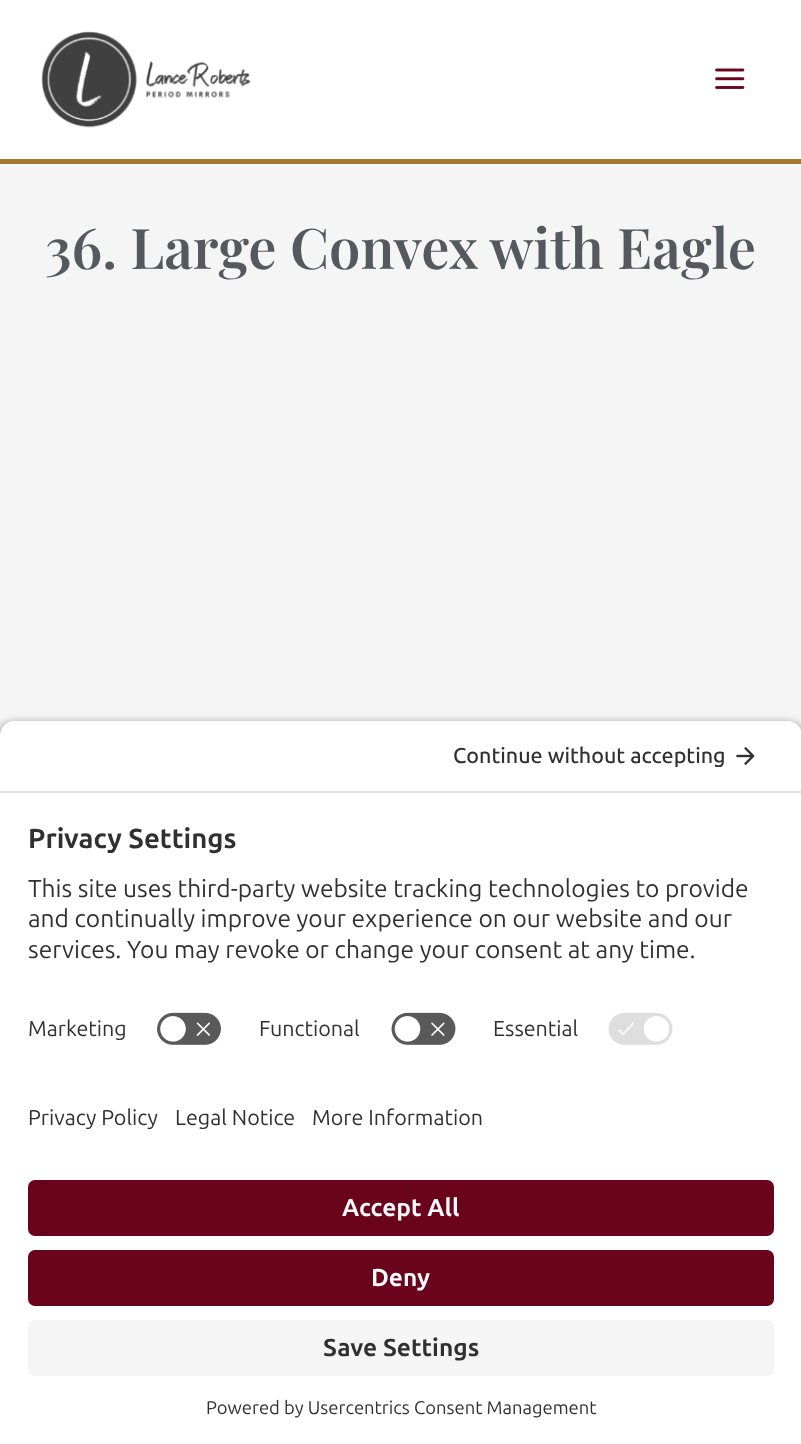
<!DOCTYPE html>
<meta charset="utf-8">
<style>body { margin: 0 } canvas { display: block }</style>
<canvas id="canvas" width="801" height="1444"></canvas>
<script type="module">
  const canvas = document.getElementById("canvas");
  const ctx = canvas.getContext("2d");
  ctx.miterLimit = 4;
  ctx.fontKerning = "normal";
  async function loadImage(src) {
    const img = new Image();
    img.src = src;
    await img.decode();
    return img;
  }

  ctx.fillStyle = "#f5f5f5";
  ctx.fillRect(0, 0, 801, 1444);
  ctx.fillStyle = "#ffffff";
  ctx.fillRect(0, 0, 801, 165);
  ctx.fillStyle = "#a77930";
  ctx.fillRect(0, 159, 801, 5);
  ctx.drawImage(await loadImage("img1.png"), 41, 31, 210, 97);
  ctx.drawImage(await loadImage("img2.png"), 715, 68, 30, 21);
  ctx.font = "600 56px Playfair Display";
  ctx.fillStyle = "#54595f";
  ctx.fillText("36. Large Convex with Eagle", 45, 269);
  ctx.fillStyle = "rgba(0, 0, 0, 0.8)";
  ctx.filter = "blur(6px)";
  ctx.beginPath();
  ctx.roundRect(0, 726, 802, 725, 14);
  ctx.fill();
  ctx.filter = "none";
  ctx.fillStyle = "#ffffff";
  ctx.beginPath();
  ctx.moveTo(14, 721);
  ctx.lineTo(788, 721);
  ctx.bezierCurveTo(795.5, 721, 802, 727.5, 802, 735);
  ctx.lineTo(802, 793);
  ctx.lineTo(0, 793);
  ctx.lineTo(0, 735);
  ctx.bezierCurveTo(0, 727.5, 6.5, 721, 14, 721);
  ctx.closePath();
  ctx.fill();
  ctx.fillStyle = "#dedede";
  ctx.fillRect(0, 791, 801, 2);
  ctx.font = "500 21.5px Ubuntu";
  ctx.fillStyle = "#303030";
  ctx.fillText("Continue without accepting", 453, 763);
  ctx.drawImage(await loadImage("img3.png"), 736, 747, 19, 18);
  ctx.fillStyle = "#ffffff";
  ctx.fillRect(0, 793, 801, 651);
  ctx.font = "bold 27.5px Ubuntu";
  ctx.fillStyle = "#303030";
  ctx.fillText("Privacy Settings", 28, 848);
  ctx.font = "24.5px Ubuntu";
  ctx.fillText("This site uses third-party website tracking technologies to provide", 28, 897);
  ctx.fillText("and continually improve your experience on our website and our", 28, 927);
  ctx.fillText("services. You may revoke or change your consent at any time.", 28, 958);
  ctx.font = "21.5px Ubuntu";
  ctx.fillText("Marketing", 28, 1036);
  ctx.drawImage(await loadImage("img4.png"), 157, 1012, 64, 33);
  ctx.fillText("Functional", 259, 1036);
  ctx.drawImage(await loadImage("img5.png"), 391, 1012, 65, 33);
  ctx.fillText("Essential", 493, 1036);
  ctx.drawImage(await loadImage("img6.png"), 608, 1013, 65, 32);
  ctx.fillText("Privacy Policy", 28, 1125);
  ctx.fillText("Legal Notice", 175, 1125);
  ctx.fillText("More Information", 312, 1125);
  ctx.fillStyle = "#6a041d";
  ctx.beginPath();
  ctx.roundRect(28, 1180, 746, 56, 7);
  ctx.fill();
  ctx.font = "bold 24.5px Ubuntu";
  ctx.fillStyle = "#fafafa";
  ctx.fillText("Accept All", 342, 1216);
  ctx.fillStyle = "#6a041d";
  ctx.beginPath();
  ctx.roundRect(28, 1250, 746, 56, 7);
  ctx.fill();
  ctx.fillStyle = "#fafafa";
  ctx.fillText("Deny", 371, 1286);
  ctx.fillStyle = "#f5f5f5";
  ctx.beginPath();
  ctx.roundRect(28, 1320, 746, 56, 7);
  ctx.fill();
  ctx.fillStyle = "#303030";
  ctx.fillText("Save Settings", 323, 1356);
  ctx.font = "18.4px Ubuntu";
  ctx.fillText("Powered by Usercentrics Consent Management", 206, 1414);
</script>
